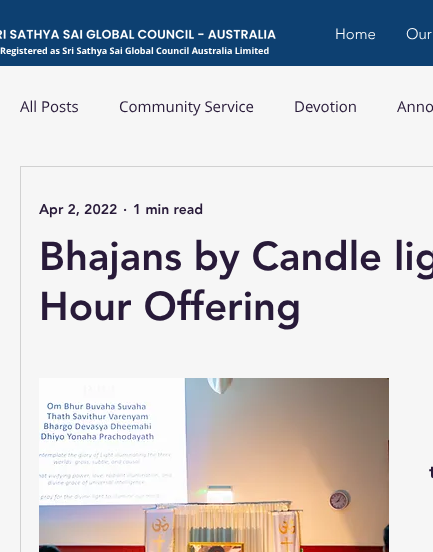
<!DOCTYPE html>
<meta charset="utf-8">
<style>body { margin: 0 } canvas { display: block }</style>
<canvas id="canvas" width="433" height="552"></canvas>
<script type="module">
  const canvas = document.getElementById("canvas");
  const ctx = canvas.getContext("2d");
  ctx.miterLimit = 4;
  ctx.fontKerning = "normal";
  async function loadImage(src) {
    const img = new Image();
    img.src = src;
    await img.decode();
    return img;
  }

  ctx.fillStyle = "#f6f6f6";
  ctx.fillRect(0, 0, 433, 552);
  ctx.fillStyle = "#0d4071";
  ctx.fillRect(0, 0, 433, 66);
  ctx.drawImage(await loadImage("img1.png"), 0, 29, 276, 10);
  ctx.font = "300 15px 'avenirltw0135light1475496'";
  ctx.fillStyle = "#ffffff";
  ctx.fillText("Home", 335, 39);
  ctx.fillText("Our", 406, 39);
  ctx.font = "bold 9px Open Sans";
  ctx.fillText("Registered as Sri Sathya Sai Global Council Australia Limited", 0, 54);
  ctx.font = "15px Open Sans";
  ctx.fillStyle = "#281a39";
  ctx.fillText("All Posts", 20, 112);
  ctx.fillText("Community Service", 119, 112);
  ctx.fillText("Devotion", 294, 112);
  ctx.fillText("Anno", 397, 112);
  ctx.strokeStyle = "#d1d1d1";
  ctx.strokeRect(20.5, 166.5, 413, 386);
  ctx.font = "900 14px 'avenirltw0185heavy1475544'";
  ctx.fillText("Apr 2, 2022", 39, 214);
  ctx.fillText("·", 123, 214);
  ctx.fillText("1 min read", 133, 214);
  ctx.font = "900 40px 'avenirltw0185heavy1475544'";
  ctx.fillText("Bhajans by Candle lig", 39, 270);
  ctx.fillText("Hour Offering", 39, 320);
  ctx.drawImage(await loadImage("img2.png"), 39, 378, 350, 174);
  ctx.font = "900 18px 'avenirltw0185heavy1475544'";
  ctx.fillText("t", 429, 478);
</script>
